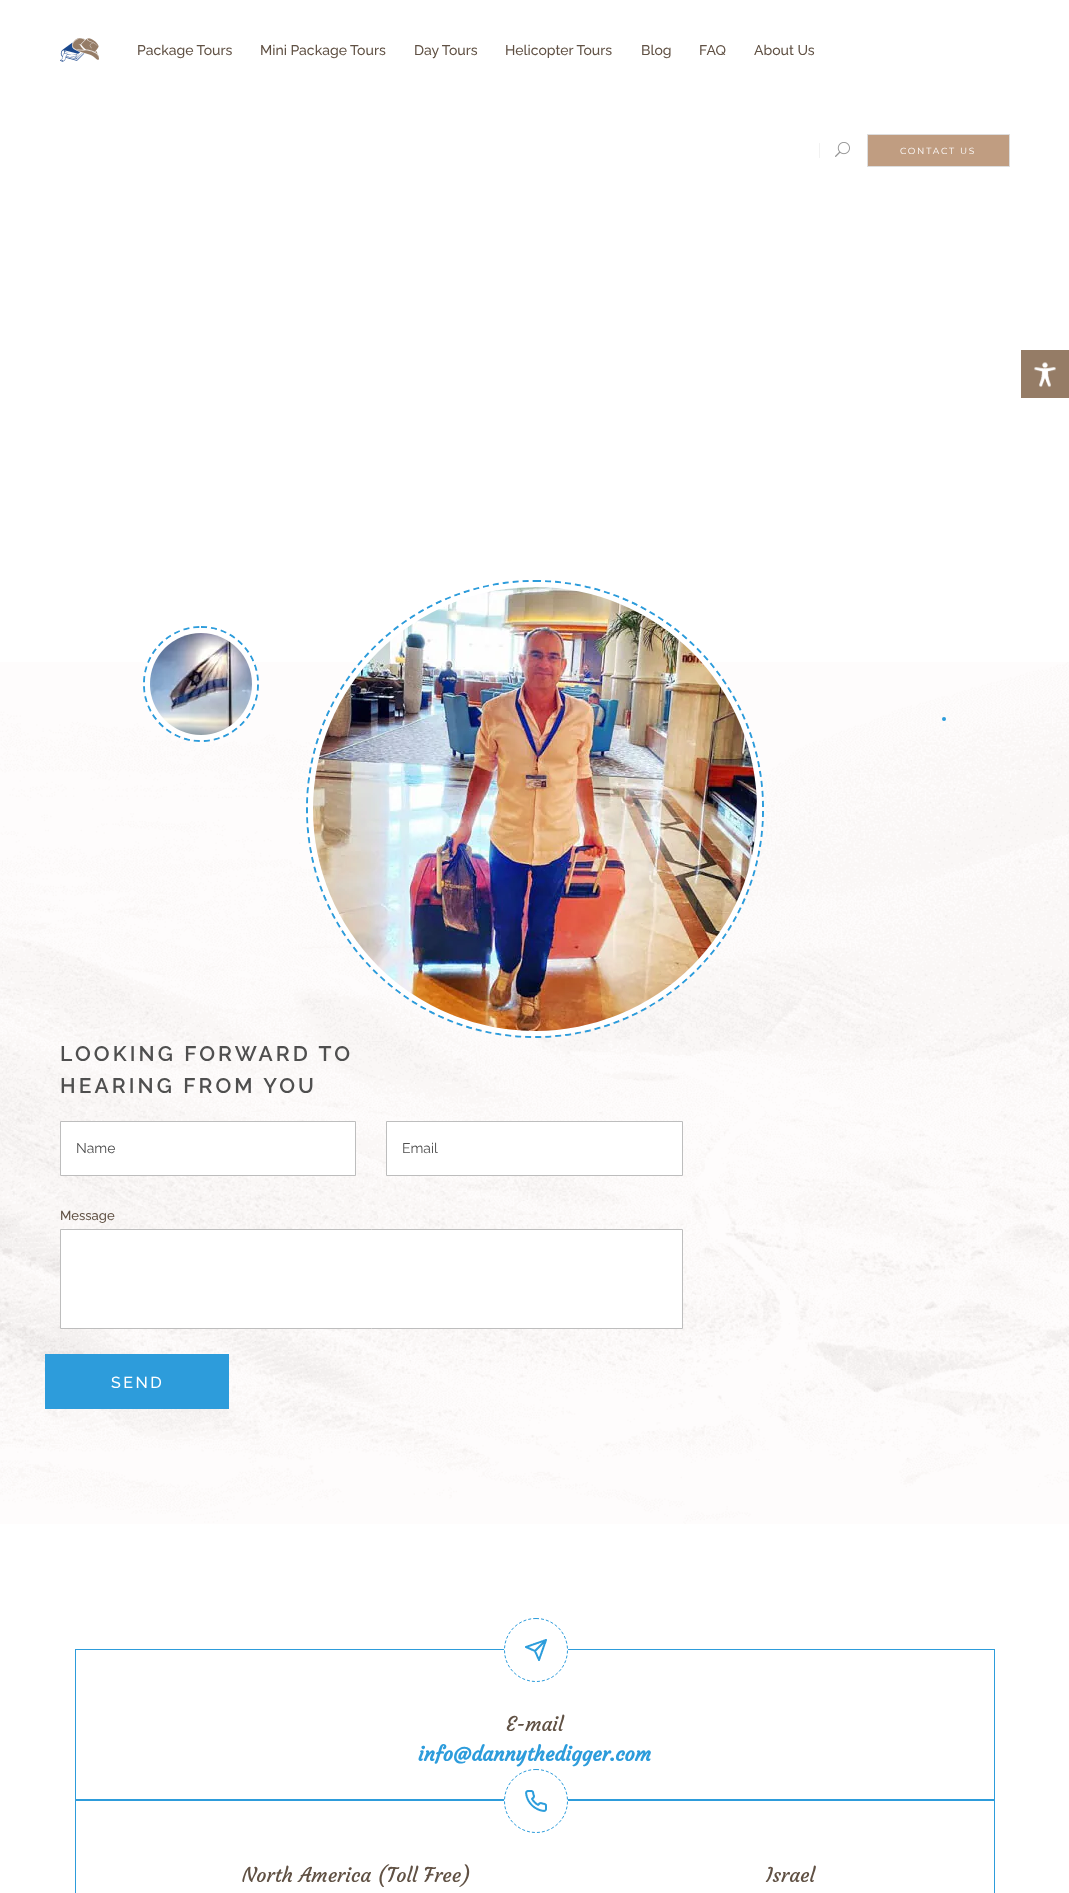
<!DOCTYPE html>
<meta charset="utf-8">
<style>body { margin: 0 } canvas { display: block }</style>
<canvas id="canvas" width="1069" height="1893"></canvas>
<script type="module">
  const canvas = document.getElementById("canvas");
  const ctx = canvas.getContext("2d");
  ctx.miterLimit = 4;
  ctx.fontKerning = "normal";
  async function loadImage(src) {
    const img = new Image();
    img.src = src;
    await img.decode();
    return img;
  }

  ctx.fillStyle = "#ffffff";
  ctx.fillRect(0, 0, 1069, 1893);
  ctx.drawImage(await loadImage("img1.png"), 60, 38, 39, 24);
  ctx.font = "500 14px Raleway";
  ctx.fillStyle = "#605144";
  ctx.fillText("Package Tours", 137, 55);
  ctx.fillText("Mini Package Tours", 260, 55);
  ctx.fillText("Day Tours", 414, 55);
  ctx.fillText("Helicopter Tours", 505, 55);
  ctx.fillText("Blog", 641, 55);
  ctx.fillText("FAQ", 699, 55);
  ctx.fillText("About Us", 754, 55);
  ctx.fillStyle = "#f2f2f2";
  ctx.fillRect(819, 143, 1, 15);
  ctx.drawImage(await loadImage("img2.png"), 835, 142, 15, 15);
  ctx.fillStyle = "#c09d81";
  ctx.beginPath();
  ctx.rect(867.5, 134.5, 142, 32);
  ctx.fill();
  ctx.strokeStyle = "#dddddd";
  ctx.stroke();
  ctx.letterSpacing = "1.75px";
  ctx.font = "9px Montserrat";
  ctx.fillStyle = "#ffffff";
  ctx.fillText("CONTACT US", 900, 154);
  ctx.drawImage(await loadImage("img3.png"), 0, 662, 1069, 862);
  ctx.beginPath();
  ctx.moveTo(201, 627);
  ctx.bezierCurveTo(232.5, 627, 258, 652.5, 258, 684);
  ctx.bezierCurveTo(258, 715.5, 232.5, 741, 201, 741);
  ctx.bezierCurveTo(169.5, 741, 144, 715.5, 144, 684);
  ctx.bezierCurveTo(144, 652.5, 169.5, 627, 201, 627);
  ctx.closePath();
  ctx.strokeStyle = "#2d9cdb";
  ctx.lineWidth = 2;
  ctx.setLineDash([6, 4]);
  ctx.stroke();
  ctx.beginPath();
  ctx.arc(201, 684, 53.5, 0, Math.PI * 2);
  ctx.strokeStyle = "#ffffff";
  ctx.lineWidth = 5;
  ctx.setLineDash([]);
  ctx.stroke();
  ctx.drawImage(await loadImage("img4.png"), 150, 633, 102, 102);
  ctx.beginPath();
  ctx.moveTo(535, 581);
  ctx.bezierCurveTo(661, 581, 763, 683, 763, 809);
  ctx.bezierCurveTo(763, 935, 661, 1037, 535, 1037);
  ctx.bezierCurveTo(409, 1037, 307, 935, 307, 809);
  ctx.bezierCurveTo(307, 683, 409, 581, 535, 581);
  ctx.closePath();
  ctx.strokeStyle = "#2d9cdb";
  ctx.lineWidth = 2;
  ctx.setLineDash([6, 4]);
  ctx.stroke();
  ctx.beginPath();
  ctx.arc(535, 809, 224.5, 0, Math.PI * 2);
  ctx.strokeStyle = "#ffffff";
  ctx.lineWidth = 5;
  ctx.setLineDash([]);
  ctx.stroke();
  ctx.drawImage(await loadImage("img5.png"), 313, 587, 444, 444);
  ctx.fillStyle = "#2d9cdb";
  ctx.beginPath();
  ctx.arc(944, 719, 2, 0, Math.PI * 2);
  ctx.fill();
  ctx.letterSpacing = "3.1px";
  ctx.font = "600 21px Raleway";
  ctx.fillStyle = "#4f4f4f";
  ctx.fillText("LOOKING FORWARD TO", 60, 1061);
  ctx.fillText("HEARING FROM YOU", 60, 1093);
  ctx.fillStyle = "#ffffff";
  ctx.beginPath();
  ctx.rect(60.5, 1121.5, 295, 54);
  ctx.fill();
  ctx.strokeStyle = "#bdbdbd";
  ctx.lineWidth = 1;
  ctx.stroke();
  ctx.letterSpacing = "0px";
  ctx.font = "14px Raleway";
  ctx.fillStyle = "#4f4f4f";
  ctx.fillText("Name", 76, 1153);
  ctx.fillStyle = "#ffffff";
  ctx.beginPath();
  ctx.rect(386.5, 1121.5, 296, 54);
  ctx.fill();
  ctx.stroke();
  ctx.fillStyle = "#4f4f4f";
  ctx.fillText("Email", 402, 1153);
  ctx.font = "500 13px Raleway";
  ctx.fillStyle = "#605144";
  ctx.fillText("Message", 60, 1220);
  ctx.fillStyle = "#ffffff";
  ctx.beginPath();
  ctx.rect(60.5, 1229.5, 622, 99);
  ctx.fill();
  ctx.stroke();
  ctx.fillStyle = "#2d9cdb";
  ctx.fillRect(45, 1354, 184, 55);
  ctx.letterSpacing = "2.5px";
  ctx.font = "500 16px Raleway";
  ctx.fillStyle = "#ffffff";
  ctx.fillText("SEND", 111, 1388);
  ctx.strokeStyle = "#2d9cdb";
  ctx.strokeRect(75.5, 1649.5, 919, 150);
  ctx.beginPath();
  ctx.arc(536, 1650, 32, 0, Math.PI * 2);
  ctx.fill();
  ctx.drawImage(await loadImage("img6.png"), 525, 1639, 22, 22);
  ctx.beginPath();
  ctx.moveTo(536, 1618.5);
  ctx.bezierCurveTo(553.5, 1618.5, 567.5, 1632.5, 567.5, 1650);
  ctx.bezierCurveTo(567.5, 1667.5, 553.5, 1681.5, 536, 1681.5);
  ctx.bezierCurveTo(518.5, 1681.5, 504.5, 1667.5, 504.5, 1650);
  ctx.bezierCurveTo(504.5, 1632.5, 518.5, 1618.5, 536, 1618.5);
  ctx.closePath();
  ctx.setLineDash([3, 2]);
  ctx.stroke();
  ctx.letterSpacing = "0px";
  ctx.font = "20px Courgette";
  ctx.fillStyle = "#605144";
  ctx.fillText("E-mail", 506, 1731);
  ctx.font = "bold 20px Courgette";
  ctx.fillStyle = "#2d9cdb";
  ctx.fillText("info@dannythedigger.com", 418, 1761);
  ctx.setLineDash([]);
  ctx.strokeRect(75.5, 1800.5, 919, 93);
  ctx.fillStyle = "#ffffff";
  ctx.beginPath();
  ctx.arc(536, 1801, 32, 0, Math.PI * 2);
  ctx.fill();
  ctx.drawImage(await loadImage("img7.png"), 525, 1790, 22, 22);
  ctx.beginPath();
  ctx.moveTo(536, 1769.5);
  ctx.bezierCurveTo(553.5, 1769.5, 567.5, 1783.5, 567.5, 1801);
  ctx.bezierCurveTo(567.5, 1818.5, 553.5, 1832.5, 536, 1832.5);
  ctx.bezierCurveTo(518.5, 1832.5, 504.5, 1818.5, 504.5, 1801);
  ctx.bezierCurveTo(504.5, 1783.5, 518.5, 1769.5, 536, 1769.5);
  ctx.closePath();
  ctx.setLineDash([3, 2]);
  ctx.stroke();
  ctx.font = "20px Courgette";
  ctx.fillStyle = "#605144";
  ctx.fillText("North America (Toll Free)", 242, 1882);
  ctx.fillText("Israel", 766, 1882);
  ctx.drawImage(await loadImage("img8.png"), 1021, 350, 48, 48);
</script>
